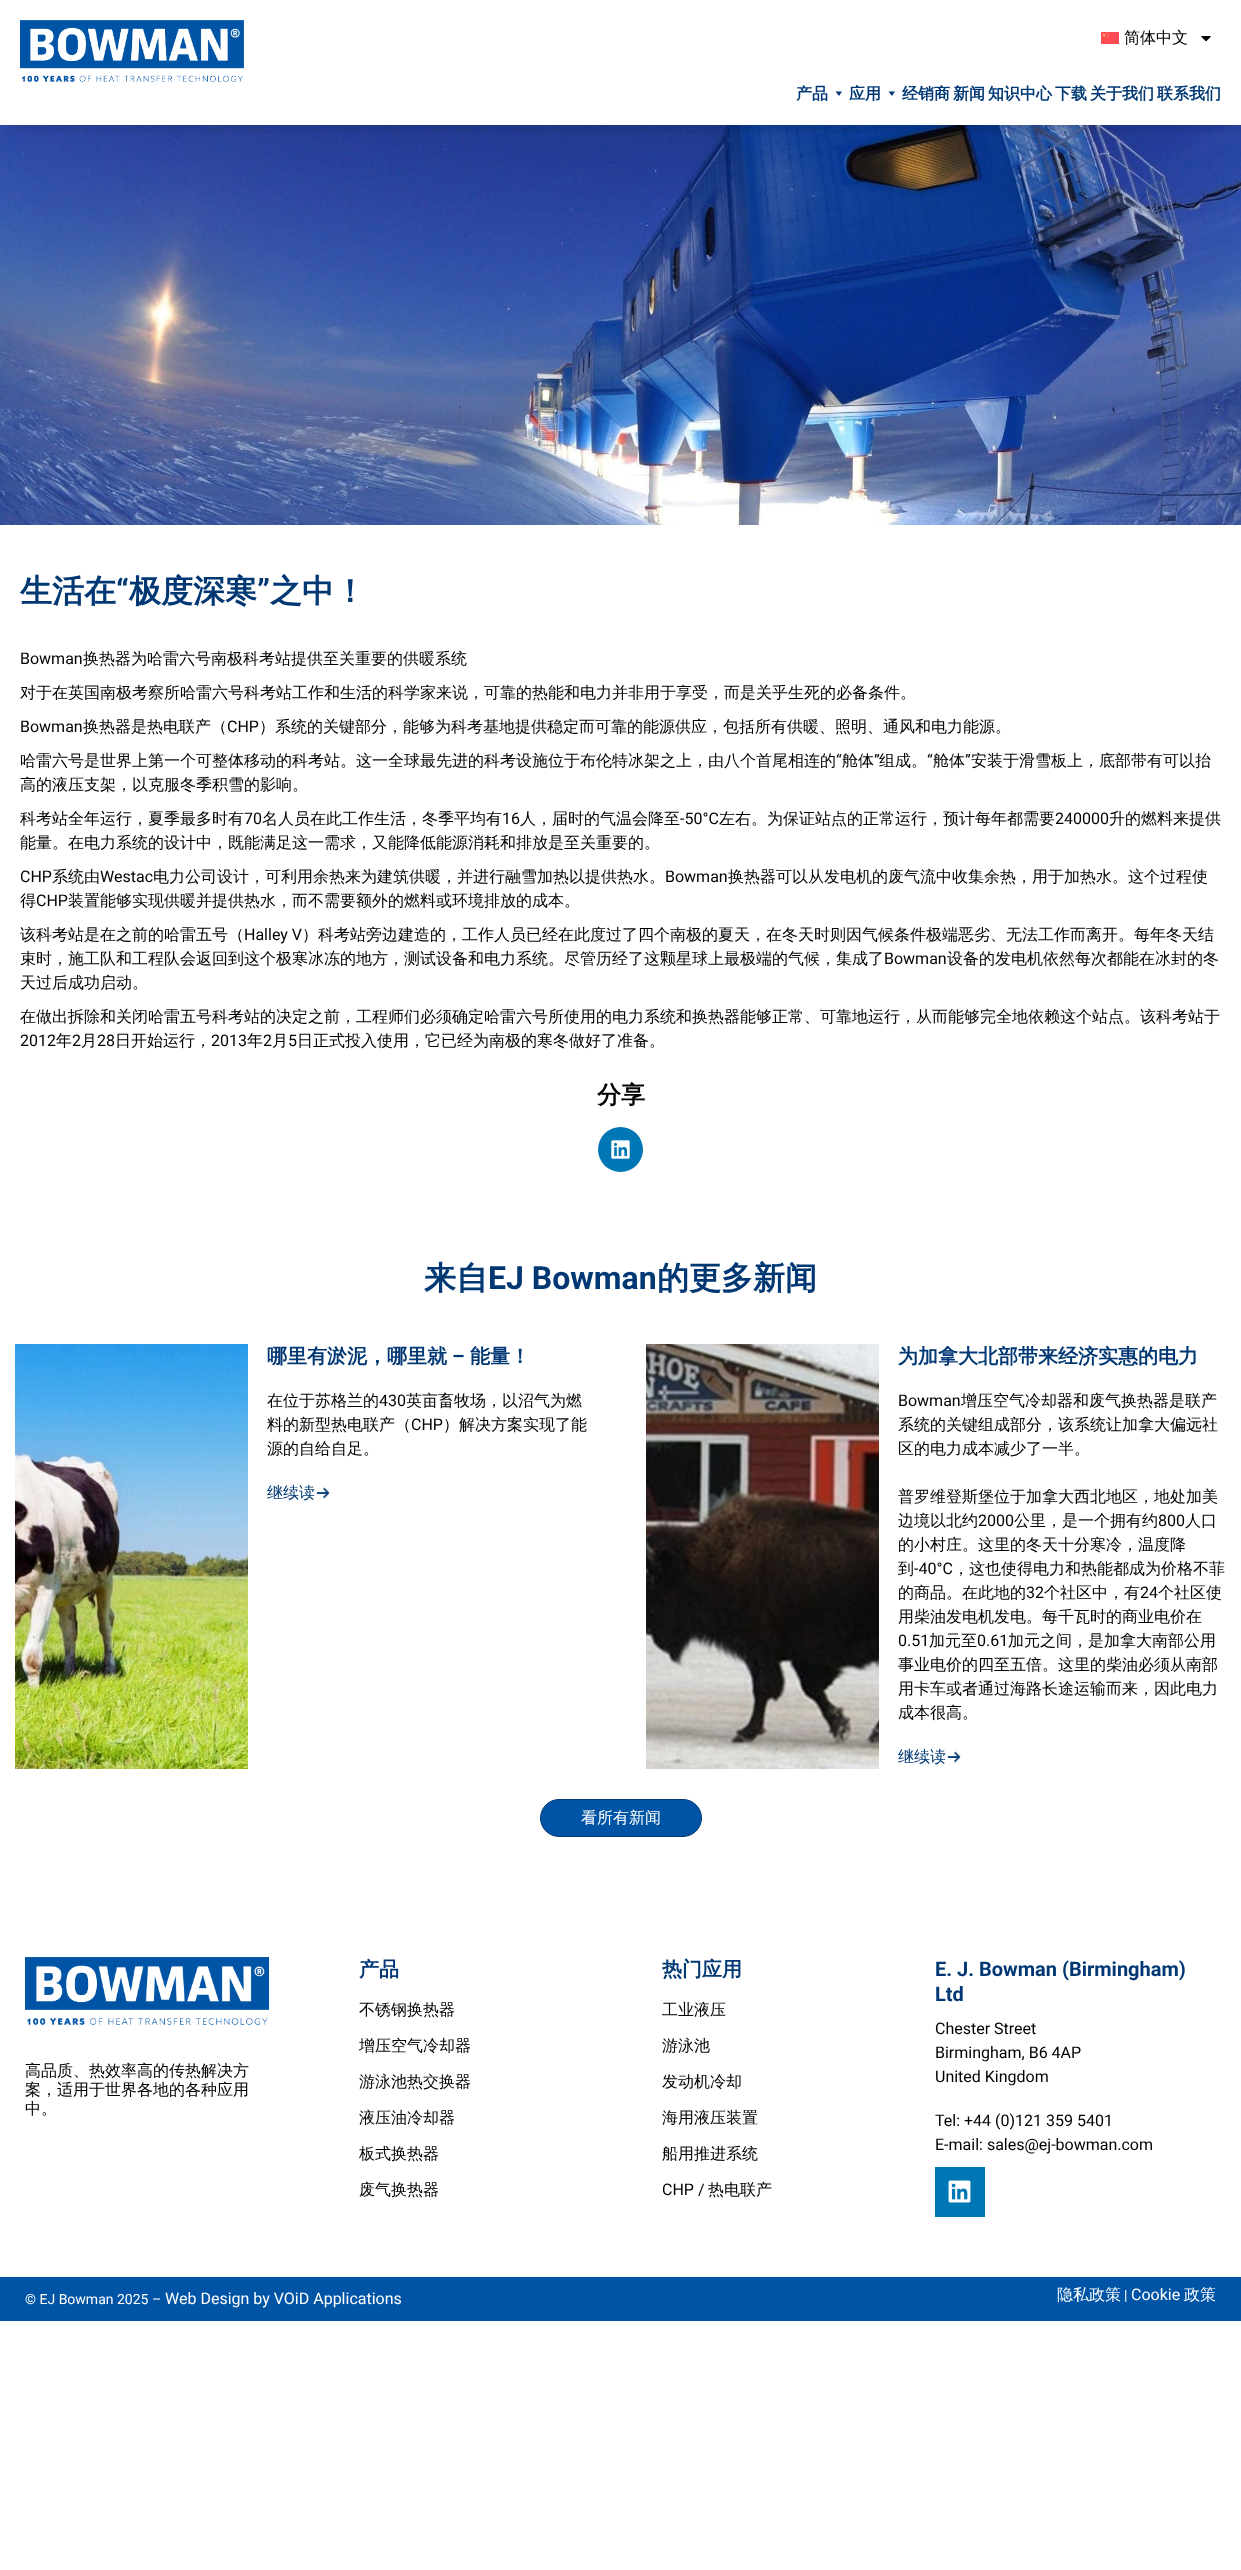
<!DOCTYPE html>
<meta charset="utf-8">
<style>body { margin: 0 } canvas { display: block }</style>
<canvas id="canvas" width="1241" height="2570"></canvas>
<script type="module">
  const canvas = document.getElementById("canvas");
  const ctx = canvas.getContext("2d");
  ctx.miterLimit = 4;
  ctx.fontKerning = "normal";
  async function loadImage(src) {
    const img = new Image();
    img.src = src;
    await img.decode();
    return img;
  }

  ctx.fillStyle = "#ffffff";
  ctx.fillRect(0, 0, 1241, 2570);
  ctx.drawImage(await loadImage("img4.png"), 0, 125, 1241, 400);
  ctx.save();
  ctx.beginPath();
  ctx.rect(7, 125, 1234, 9);
  ctx.clip();
  ctx.fillStyle = "rgba(0, 0, 0, 0.1)";
  ctx.filter = "blur(5px)";
  ctx.beginPath();
  ctx.rect(10, 5, 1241, 125);
  ctx.fill();
  ctx.filter = "none";
  ctx.restore();
  ctx.drawImage(await loadImage("img1.png"), 20, 20, 224, 62);
  ctx.drawImage(await loadImage("img2.png"), 1101, 32, 18, 12);
  ctx.font = "500 16px WenQuanYi Zen Hei";
  ctx.fillStyle = "#000000";
  ctx.fillText("简体中文", 1124, 43);
  ctx.drawImage(await loadImage("img3.png"), 1201, 36, 10, 6);
  ctx.font = "bold 16px WenQuanYi Zen Hei";
  ctx.fillStyle = "#013874";
  ctx.fillText("产品", 796, 99);
  ctx.beginPath();
  ctx.moveTo(842, 91.5);
  ctx.lineTo(839, 96);
  ctx.lineTo(835.5, 91.5);
  ctx.closePath();
  ctx.fill();
  ctx.fillText("应用", 849, 99);
  ctx.beginPath();
  ctx.moveTo(895, 91.5);
  ctx.lineTo(892, 96);
  ctx.lineTo(888.5, 91.5);
  ctx.closePath();
  ctx.fill();
  ctx.fillText("经销商", 902, 99);
  ctx.fillText("新闻", 953, 99);
  ctx.fillText("知识中心", 988, 99);
  ctx.fillText("下载", 1055, 99);
  ctx.fillText("关于我们", 1090, 99);
  ctx.fillText("联系我们", 1157, 99);
  ctx.font = "bold 32px WenQuanYi Zen Hei";
  ctx.fillText("生活在", 20, 602);
  ctx.font = "bold 32px Roboto";
  ctx.fillText("“", 116, 602);
  ctx.font = "bold 32px WenQuanYi Zen Hei";
  ctx.fillText("极度深寒", 129, 602);
  ctx.font = "bold 32px Roboto";
  ctx.fillText("”", 257, 602);
  ctx.font = "bold 32px WenQuanYi Zen Hei";
  ctx.fillText("之中！", 270, 602);
  ctx.font = "16px Roboto";
  ctx.fillStyle = "#000000";
  ctx.fillText("Bowman", 20, 664);
  ctx.font = "500 16px WenQuanYi Zen Hei";
  ctx.fillText("换热器为哈雷六号南极科考站提供至关重要的供暖系统", 83, 664);
  ctx.fillText("对于在英国南极考察所哈雷六号科考站工作和生活的科学家来说，可靠的热能和电力并非用于享受，而是关乎生死的必备条件。", 20, 698);
  ctx.font = "16px Roboto";
  ctx.fillText("Bowman", 20, 732);
  ctx.font = "500 16px WenQuanYi Zen Hei";
  ctx.fillText("换热器是热电联产（", 83, 732);
  ctx.font = "16px Roboto";
  ctx.fillText("CHP", 227, 732);
  ctx.font = "500 16px WenQuanYi Zen Hei";
  ctx.fillText("）系统的关键部分，能够为科考基地提供稳定而可靠的能源供应，包括所有供暖、照明、通风和电力能源。", 259, 732);
  ctx.fillText("哈雷六号是世界上第一个可整体移动的科考站。这一全球最先进的科考设施位于布伦特冰架之上，由八个首尾相连的", 20, 766);
  ctx.font = "16px Roboto";
  ctx.fillText("“", 836, 766);
  ctx.font = "500 16px WenQuanYi Zen Hei";
  ctx.fillText("舱体", 842, 766);
  ctx.font = "16px Roboto";
  ctx.fillText("”", 874, 766);
  ctx.font = "500 16px WenQuanYi Zen Hei";
  ctx.fillText("组成。", 879, 766);
  ctx.font = "16px Roboto";
  ctx.fillText("“", 927, 766);
  ctx.font = "500 16px WenQuanYi Zen Hei";
  ctx.fillText("舱体", 933, 766);
  ctx.font = "16px Roboto";
  ctx.fillText("”", 965, 766);
  ctx.font = "500 16px WenQuanYi Zen Hei";
  ctx.fillText("安装于滑雪板上，底部带有可以抬", 971, 766);
  ctx.fillText("高的液压支架，以克服冬季积雪的影响。", 20, 790);
  ctx.fillText("科考站全年运行，夏季最多时有", 20, 824);
  ctx.font = "16px Roboto";
  ctx.fillText("70", 244, 824);
  ctx.font = "500 16px WenQuanYi Zen Hei";
  ctx.fillText("名人员在此工作生活，冬季平均有", 262, 824);
  ctx.font = "16px Roboto";
  ctx.fillText("16", 502, 824);
  ctx.font = "500 16px WenQuanYi Zen Hei";
  ctx.fillText("人，届时的气温会降至", 520, 824);
  ctx.font = "16px Roboto";
  ctx.fillText("-50°C", 680, 824);
  ctx.font = "500 16px WenQuanYi Zen Hei";
  ctx.fillText("左右。为保证站点的正常运行，预计每年都需要", 719, 824);
  ctx.font = "16px Roboto";
  ctx.fillText("240000", 1055, 824);
  ctx.font = "500 16px WenQuanYi Zen Hei";
  ctx.fillText("升的燃料来提供", 1109, 824);
  ctx.fillText("能量。在电力系统的设计中，既能满足这一需求，又能降低能源消耗和排放是至关重要的。", 20, 848);
  ctx.font = "16px Roboto";
  ctx.fillText("CHP", 20, 882);
  ctx.font = "500 16px WenQuanYi Zen Hei";
  ctx.fillText("系统由", 52, 882);
  ctx.font = "16px Roboto";
  ctx.fillText("Westac", 100, 882);
  ctx.font = "500 16px WenQuanYi Zen Hei";
  ctx.fillText("电力公司设计，可利用余热来为建筑供暖，并进行融雪加热以提供热水。", 153, 882);
  ctx.font = "16px Roboto";
  ctx.fillText("Bowman", 665, 882);
  ctx.font = "500 16px WenQuanYi Zen Hei";
  ctx.fillText("换热器可以从发电机的废气流中收集余热，用于加热水。这个过程使", 728, 882);
  ctx.fillText("得", 20, 906);
  ctx.font = "16px Roboto";
  ctx.fillText("CHP", 36, 906);
  ctx.font = "500 16px WenQuanYi Zen Hei";
  ctx.fillText("装置能够实现供暖并提供热水，而不需要额外的燃料或环境排放的成本。", 68, 906);
  ctx.fillText("该科考站是在之前的哈雷五号（", 20, 940);
  ctx.font = "16px Roboto";
  ctx.fillText("Halley V", 244, 940);
  ctx.font = "500 16px WenQuanYi Zen Hei";
  ctx.fillText("）科考站旁边建造的，工作人员已经在此度过了四个南极的夏天，在冬天时则因气候条件极端恶劣、无法工作而离开。每年冬天结", 302, 940);
  ctx.fillText("束时，施工队和工程队会返回到这个极寒冰冻的地方，测试设备和电力系统。尽管历经了这颗星球上最极端的气候，集成了", 20, 964);
  ctx.font = "16px Roboto";
  ctx.fillText("Bowman", 884, 964);
  ctx.font = "500 16px WenQuanYi Zen Hei";
  ctx.fillText("设备的发电机依然每次都能在冰封的冬", 947, 964);
  ctx.fillText("天过后成功启动。", 20, 988);
  ctx.fillText("在做出拆除和关闭哈雷五号科考站的决定之前，工程师们必须确定哈雷六号所使用的电力系统和换热器能够正常、可靠地运行，从而能够完全地依赖这个站点。该科考站于", 20, 1022);
  ctx.font = "16px Roboto";
  ctx.fillText("2012", 20, 1046);
  ctx.font = "500 16px WenQuanYi Zen Hei";
  ctx.fillText("年", 56, 1046);
  ctx.font = "16px Roboto";
  ctx.fillText("2", 72, 1046);
  ctx.font = "500 16px WenQuanYi Zen Hei";
  ctx.fillText("月", 81, 1046);
  ctx.font = "16px Roboto";
  ctx.fillText("28", 97, 1046);
  ctx.font = "500 16px WenQuanYi Zen Hei";
  ctx.fillText("日开始运行，", 115, 1046);
  ctx.font = "16px Roboto";
  ctx.fillText("2013", 211, 1046);
  ctx.font = "500 16px WenQuanYi Zen Hei";
  ctx.fillText("年", 247, 1046);
  ctx.font = "16px Roboto";
  ctx.fillText("2", 263, 1046);
  ctx.font = "500 16px WenQuanYi Zen Hei";
  ctx.fillText("月", 272, 1046);
  ctx.font = "16px Roboto";
  ctx.fillText("5", 288, 1046);
  ctx.font = "500 16px WenQuanYi Zen Hei";
  ctx.fillText("日正式投入使用，它已经为南极的寒冬做好了准备。", 297, 1046);
  ctx.font = "bold 24px WenQuanYi Zen Hei";
  ctx.fillText("分享", 597, 1103);
  ctx.fillStyle = "#0077b5";
  ctx.beginPath();
  ctx.arc(620.5, 1149.5, 22.5, 0, Math.PI * 2);
  ctx.fill();
  ctx.drawImage(await loadImage("img5.png"), 611, 1140, 19, 19);
  ctx.font = "bold 32px WenQuanYi Zen Hei";
  ctx.fillStyle = "#013874";
  ctx.fillText("来自", 424, 1289);
  ctx.font = "bold 32px Roboto";
  ctx.fillText("EJ Bowman", 488, 1289);
  ctx.font = "bold 32px WenQuanYi Zen Hei";
  ctx.fillText("的更多新闻", 657, 1289);
  ctx.drawImage(await loadImage("img6.png"), 15, 1344, 233, 425);
  ctx.font = "bold 20px WenQuanYi Zen Hei";
  ctx.fillText("哪里有淤泥，哪里就", 267, 1363);
  ctx.font = "bold 20px Roboto";
  ctx.fillText("–", 452, 1363);
  ctx.font = "bold 20px WenQuanYi Zen Hei";
  ctx.fillText("能量！", 470, 1363);
  ctx.font = "500 16px WenQuanYi Zen Hei";
  ctx.fillStyle = "#000000";
  ctx.fillText("在位于苏格兰的", 267, 1406);
  ctx.font = "16px Roboto";
  ctx.fillText("430", 379, 1406);
  ctx.font = "500 16px WenQuanYi Zen Hei";
  ctx.fillText("英亩畜牧场，以沼气为燃", 406, 1406);
  ctx.fillText("料的新型热电联产（", 267, 1430);
  ctx.font = "16px Roboto";
  ctx.fillText("CHP", 411, 1430);
  ctx.font = "500 16px WenQuanYi Zen Hei";
  ctx.fillText("）解决方案实现了能", 443, 1430);
  ctx.fillText("源的自给自足。", 267, 1454);
  ctx.fillStyle = "#013874";
  ctx.fillText("继续读", 267, 1498);
  ctx.drawImage(await loadImage("img7.png"), 316, 1487, 14, 12);
  ctx.drawImage(await loadImage("img8.png"), 646, 1344, 233, 425);
  ctx.font = "bold 20px WenQuanYi Zen Hei";
  ctx.fillText("为加拿大北部带来经济实惠的电力", 898, 1363);
  ctx.font = "16px Roboto";
  ctx.fillStyle = "#000000";
  ctx.fillText("Bowman", 898, 1406);
  ctx.font = "500 16px WenQuanYi Zen Hei";
  ctx.fillText("增压空气冷却器和废气换热器是联产", 961, 1406);
  ctx.fillText("系统的关键组成部分，该系统让加拿大偏远社", 898, 1430);
  ctx.fillText("区的电力成本减少了一半。", 898, 1454);
  ctx.fillText("普罗维登斯堡位于加拿大西北地区，地处加美", 898, 1502);
  ctx.fillText("边境以北约", 898, 1526);
  ctx.font = "16px Roboto";
  ctx.fillText("2000", 978, 1526);
  ctx.font = "500 16px WenQuanYi Zen Hei";
  ctx.fillText("公里，是一个拥有约", 1014, 1526);
  ctx.font = "16px Roboto";
  ctx.fillText("800", 1158, 1526);
  ctx.font = "500 16px WenQuanYi Zen Hei";
  ctx.fillText("人口", 1185, 1526);
  ctx.fillText("的小村庄。这里的冬天十分寒冷，温度降", 898, 1550);
  ctx.fillText("到", 898, 1574);
  ctx.font = "16px Roboto";
  ctx.fillText("-40°C", 914, 1574);
  ctx.font = "500 16px WenQuanYi Zen Hei";
  ctx.fillText("，这也使得电力和热能都成为价格不菲", 953, 1574);
  ctx.fillText("的商品。在此地的", 898, 1598);
  ctx.font = "16px Roboto";
  ctx.fillText("32", 1026, 1598);
  ctx.font = "500 16px WenQuanYi Zen Hei";
  ctx.fillText("个社区中，有", 1044, 1598);
  ctx.font = "16px Roboto";
  ctx.fillText("24", 1140, 1598);
  ctx.font = "500 16px WenQuanYi Zen Hei";
  ctx.fillText("个社区使", 1158, 1598);
  ctx.fillText("用柴油发电机发电。每千瓦时的商业电价在", 898, 1622);
  ctx.font = "16px Roboto";
  ctx.fillText("0.51", 898, 1646);
  ctx.font = "500 16px WenQuanYi Zen Hei";
  ctx.fillText("加元至", 929, 1646);
  ctx.font = "16px Roboto";
  ctx.fillText("0.61", 977, 1646);
  ctx.font = "500 16px WenQuanYi Zen Hei";
  ctx.fillText("加元之间，是加拿大南部公用", 1008, 1646);
  ctx.fillText("事业电价的四至五倍。这里的柴油必须从南部", 898, 1670);
  ctx.fillText("用卡车或者通过海路长途运输而来，因此电力", 898, 1694);
  ctx.fillText("成本很高。", 898, 1718);
  ctx.fillStyle = "#013874";
  ctx.fillText("继续读", 898, 1762);
  ctx.drawImage(await loadImage("img9.png"), 947, 1751, 14, 12);
  ctx.fillStyle = "#0054a6";
  ctx.beginPath();
  ctx.roundRect(540.5, 1799.5, 161, 37, 18.5);
  ctx.fill();
  ctx.strokeStyle = "#013874";
  ctx.stroke();
  ctx.fillStyle = "#ffffff";
  ctx.fillText("看所有新闻", 581, 1823);
  ctx.drawImage(await loadImage("img10.png"), 25, 1957, 244, 68);
  ctx.fillStyle = "#000000";
  ctx.fillText("高品质、热效率高的传热解决方", 25, 2076);
  ctx.fillText("案，适用于世界各地的各种应用", 25, 2095);
  ctx.fillText("中。", 25, 2114);
  ctx.font = "bold 20px WenQuanYi Zen Hei";
  ctx.fillStyle = "#013874";
  ctx.fillText("产品", 359, 1976);
  ctx.font = "500 16px WenQuanYi Zen Hei";
  ctx.fillStyle = "#000000";
  ctx.fillText("不锈钢换热器", 359, 2015);
  ctx.fillText("增压空气冷却器", 359, 2051);
  ctx.fillText("游泳池热交换器", 359, 2087);
  ctx.fillText("液压油冷却器", 359, 2123);
  ctx.fillText("板式换热器", 359, 2159);
  ctx.fillText("废气换热器", 359, 2195);
  ctx.font = "bold 20px WenQuanYi Zen Hei";
  ctx.fillStyle = "#013874";
  ctx.fillText("热门应用", 662, 1976);
  ctx.font = "500 16px WenQuanYi Zen Hei";
  ctx.fillStyle = "#000000";
  ctx.fillText("工业液压", 662, 2015);
  ctx.fillText("游泳池", 662, 2051);
  ctx.fillText("发动机冷却", 662, 2087);
  ctx.fillText("海用液压装置", 662, 2123);
  ctx.fillText("船用推进系统", 662, 2159);
  ctx.font = "16px Roboto";
  ctx.fillText("CHP /", 662, 2195);
  ctx.font = "500 16px WenQuanYi Zen Hei";
  ctx.fillText("热电联产", 708, 2195);
  ctx.font = "bold 20px Roboto";
  ctx.fillStyle = "#013874";
  ctx.fillText("E. J. Bowman (Birmingham)", 935, 1976);
  ctx.fillText("Ltd", 935, 2001);
  ctx.font = "16px Roboto";
  ctx.fillStyle = "#000000";
  ctx.fillText("Chester Street", 935, 2034);
  ctx.fillText("Birmingham, B6 4AP", 935, 2058);
  ctx.fillText("United Kingdom", 935, 2082);
  ctx.fillText("Tel: +44 (0)121 359 5401", 935, 2126);
  ctx.fillText("E-mail: sales@ej-bowman.com", 935, 2150);
  ctx.fillStyle = "#0077b5";
  ctx.fillRect(935, 2167, 50, 50);
  ctx.drawImage(await loadImage("img11.png"), 948, 2180, 23, 23);
  ctx.fillStyle = "#0054a6";
  ctx.fillRect(0, 2277, 1241, 44);
  ctx.font = "14px Roboto";
  ctx.fillStyle = "#ffffff";
  ctx.fillText("© EJ Bowman 2025 –", 25, 2304);
  ctx.font = "16px Roboto";
  ctx.fillText("Web Design by VOiD Applications", 165, 2304);
  ctx.font = "500 16px WenQuanYi Zen Hei";
  ctx.fillText("隐私政策", 1057, 2300);
  ctx.font = "14px Roboto";
  ctx.fillText("|", 1124, 2300);
  ctx.font = "16px Roboto";
  ctx.fillText("Cookie", 1131, 2300);
  ctx.font = "500 16px WenQuanYi Zen Hei";
  ctx.fillText("政策", 1184, 2300);
</script>
